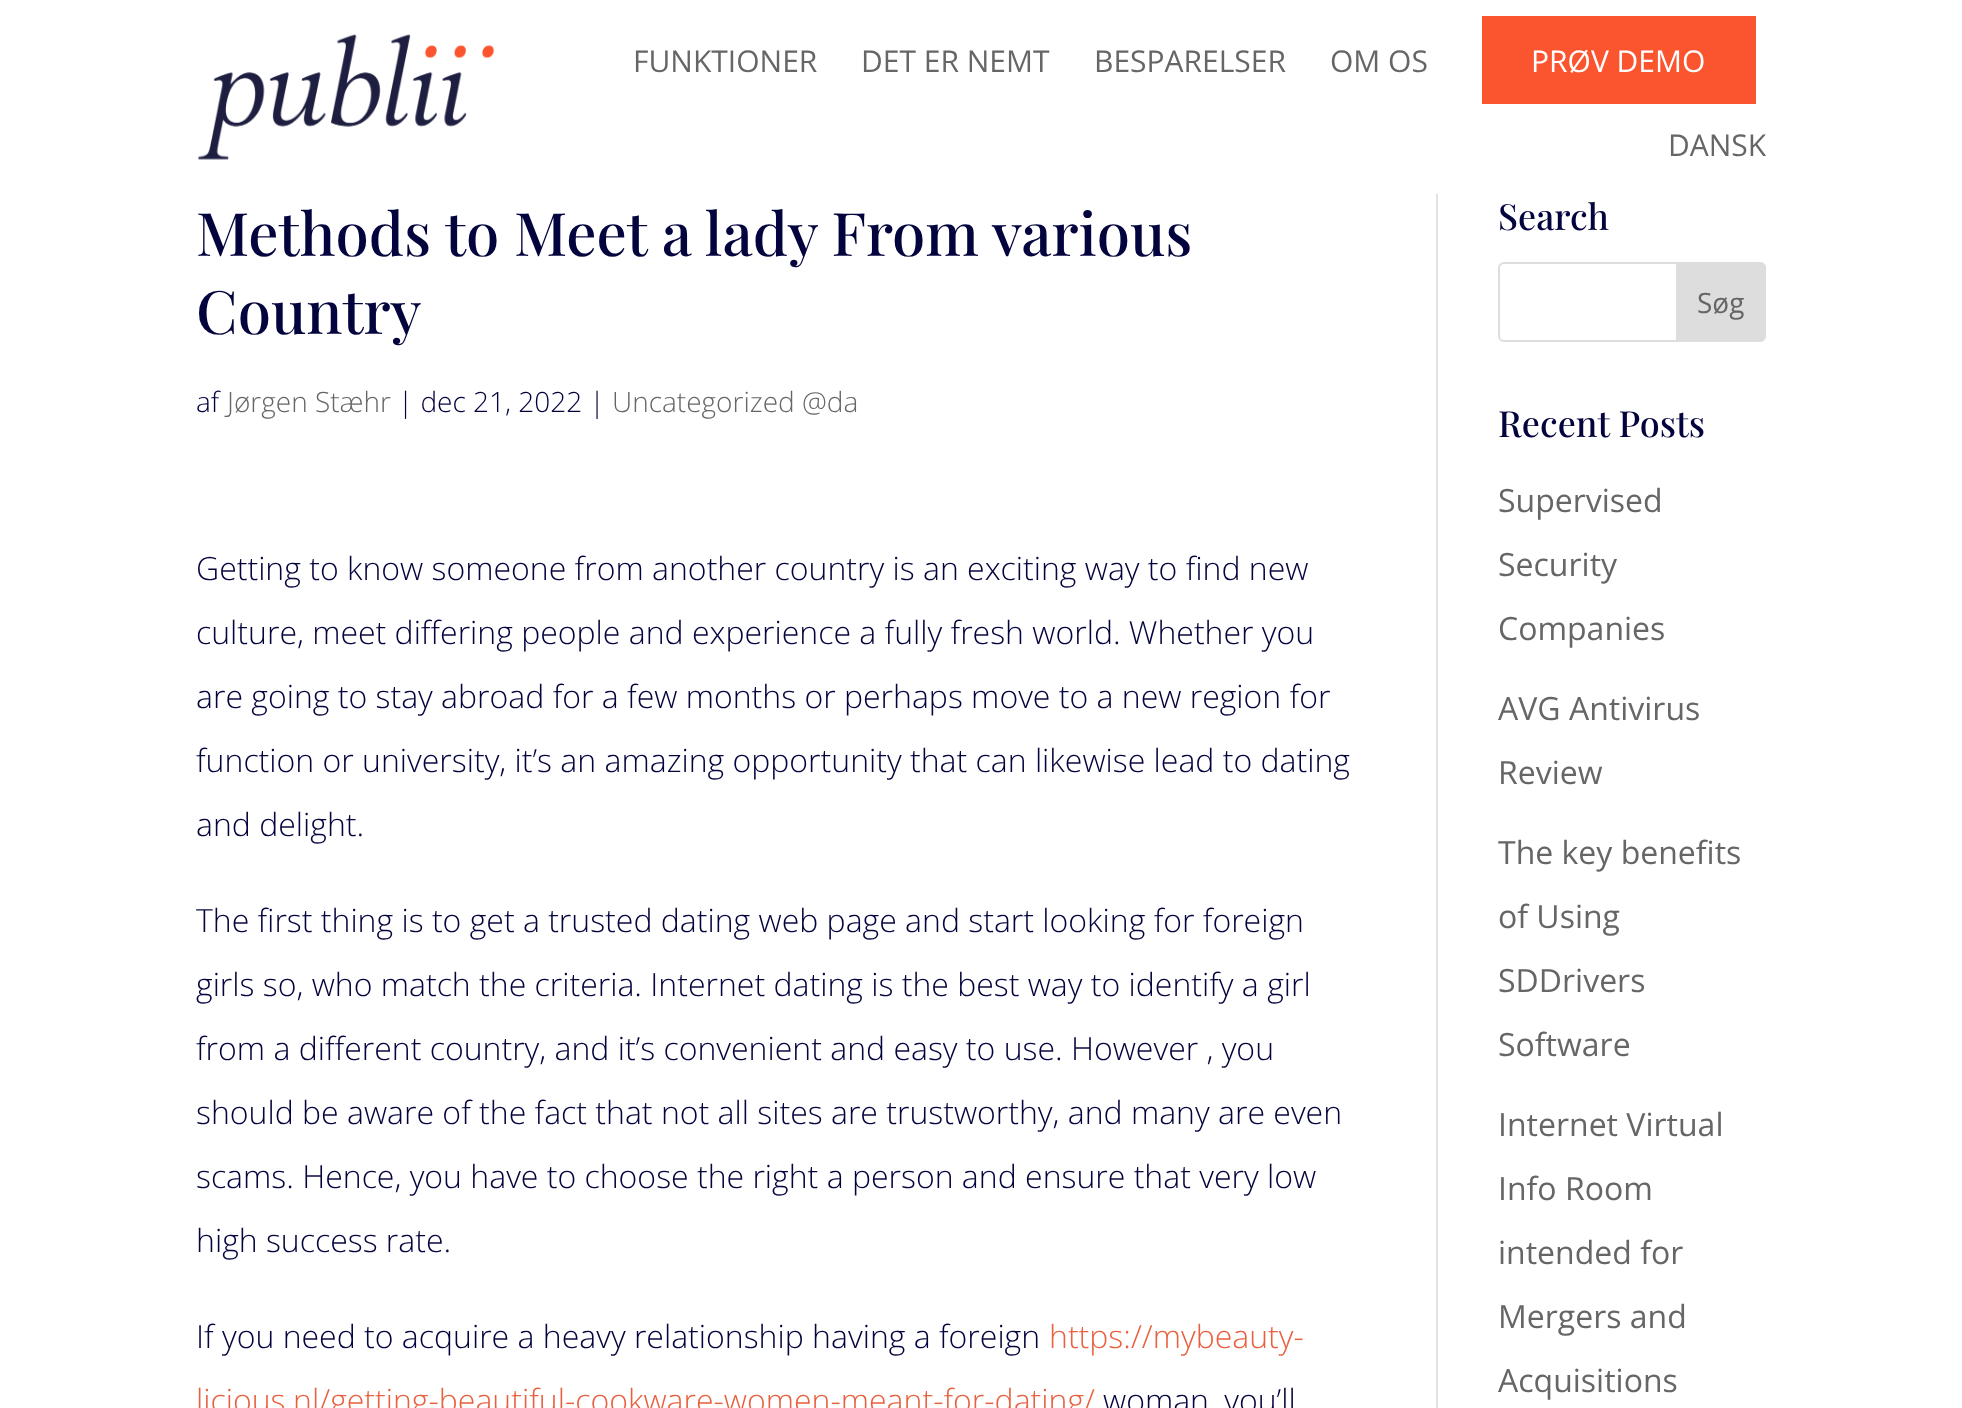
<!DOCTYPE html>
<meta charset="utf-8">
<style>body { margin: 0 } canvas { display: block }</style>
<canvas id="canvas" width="1962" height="1408"></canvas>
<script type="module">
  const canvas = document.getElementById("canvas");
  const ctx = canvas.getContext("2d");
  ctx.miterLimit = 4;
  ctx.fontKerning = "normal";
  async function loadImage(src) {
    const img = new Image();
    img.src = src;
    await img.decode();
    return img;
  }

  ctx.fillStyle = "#ffffff";
  ctx.fillRect(0, 0, 1962, 1408);
  ctx.drawImage(await loadImage("img1.png"), 197, 34, 298, 126);
  ctx.font = "30px Open Sans";
  ctx.fillStyle = "#666666";
  ctx.fillText("FUNKTIONER", 633, 72);
  ctx.fillText("DET ER NEMT", 861, 72);
  ctx.fillText("BESPARELSER", 1094, 72);
  ctx.fillText("OM OS", 1330, 72);
  ctx.fillStyle = "#fb5530";
  ctx.fillRect(1482, 16, 274, 88);
  ctx.fillStyle = "#ffffff";
  ctx.fillText("PRØV DEMO", 1531, 72);
  ctx.fillStyle = "#666666";
  ctx.fillText("DANSK", 1668, 156);
  ctx.fillStyle = "#e2e2e2";
  ctx.fillRect(1436, 194, 2, 1214);
  ctx.font = "500 60px Playfair Display";
  ctx.fillStyle = "#03033d";
  ctx.fillText("Methods to Meet a lady From various", 196, 256);
  ctx.fillText("Country", 196, 334);
  ctx.font = "300 28px Open Sans";
  ctx.fillText("af", 196, 412);
  ctx.fillStyle = "#666666";
  ctx.fillText("Jørgen Stæhr", 227, 412);
  ctx.fillStyle = "#03033d";
  ctx.fillText("| dec 21, 2022 |", 398, 412);
  ctx.fillStyle = "#666666";
  ctx.fillText("Uncategorized @da", 612, 412);
  ctx.font = "300 32px Open Sans";
  ctx.fillStyle = "#03033d";
  ctx.fillText("Getting to know someone from another country is an exciting way to find new", 196, 580);
  ctx.fillText("culture, meet differing people and experience a fully fresh world. Whether you", 196, 644);
  ctx.fillText("are going to stay abroad for a few months or perhaps move to a new region for", 196, 708);
  ctx.fillText("function or university, it’s an amazing opportunity that can likewise lead to dating", 196, 772);
  ctx.fillText("and delight.", 196, 836);
  ctx.fillText("The first thing is to get a trusted dating web page and start looking for foreign", 196, 932);
  ctx.fillText("girls so, who match the criteria. Internet dating is the best way to identify a girl", 196, 996);
  ctx.fillText("from a different country, and it’s convenient and easy to use. However , you", 196, 1060);
  ctx.fillText("should be aware of the fact that not all sites are trustworthy, and many are even", 196, 1124);
  ctx.fillText("scams. Hence, you have to choose the right a person and ensure that very low", 196, 1188);
  ctx.fillText("high success rate.", 196, 1252);
  ctx.fillText("If you need to acquire a heavy relationship having a foreign", 196, 1348);
  ctx.fillStyle = "#e9603f";
  ctx.fillText("https://mybeauty-", 1049, 1348);
  ctx.fillText("licious.nl/getting-beautiful-cookware-women-meant-for-dating/", 196, 1412);
  ctx.fillStyle = "#03033d";
  ctx.fillText("woman, you’ll", 1103, 1412);
  ctx.font = "500 36px Playfair Display";
  ctx.fillText("Search", 1498, 230);
  ctx.beginPath();
  ctx.roundRect(1499, 263, 266, 78, 5);
  ctx.strokeStyle = "#dddddd";
  ctx.lineWidth = 2;
  ctx.stroke();
  ctx.fillStyle = "#dddddd";
  ctx.beginPath();
  ctx.roundRect(1677, 263, 88, 78, [0, 5, 5, 0]);
  ctx.fill();
  ctx.stroke();
  ctx.font = "28px Open Sans";
  ctx.fillStyle = "#666666";
  ctx.fillText("Søg", 1697, 313);
  ctx.font = "500 36px Playfair Display";
  ctx.fillStyle = "#03033d";
  ctx.fillText("Recent Posts", 1498, 437);
  ctx.font = "32px Open Sans";
  ctx.fillStyle = "#666666";
  ctx.fillText("Supervised", 1498, 512);
  ctx.fillText("Security", 1498, 576);
  ctx.fillText("Companies", 1498, 640);
  ctx.fillText("AVG Antivirus", 1498, 720);
  ctx.fillText("Review", 1498, 784);
  ctx.fillText("The key benefits", 1498, 864);
  ctx.fillText("of Using", 1498, 928);
  ctx.fillText("SDDrivers", 1498, 992);
  ctx.fillText("Software", 1498, 1056);
  ctx.fillText("Internet Virtual", 1498, 1136);
  ctx.fillText("Info Room", 1498, 1200);
  ctx.fillText("intended for", 1498, 1264);
  ctx.fillText("Mergers and", 1498, 1328);
  ctx.fillText("Acquisitions", 1498, 1392);
</script>
